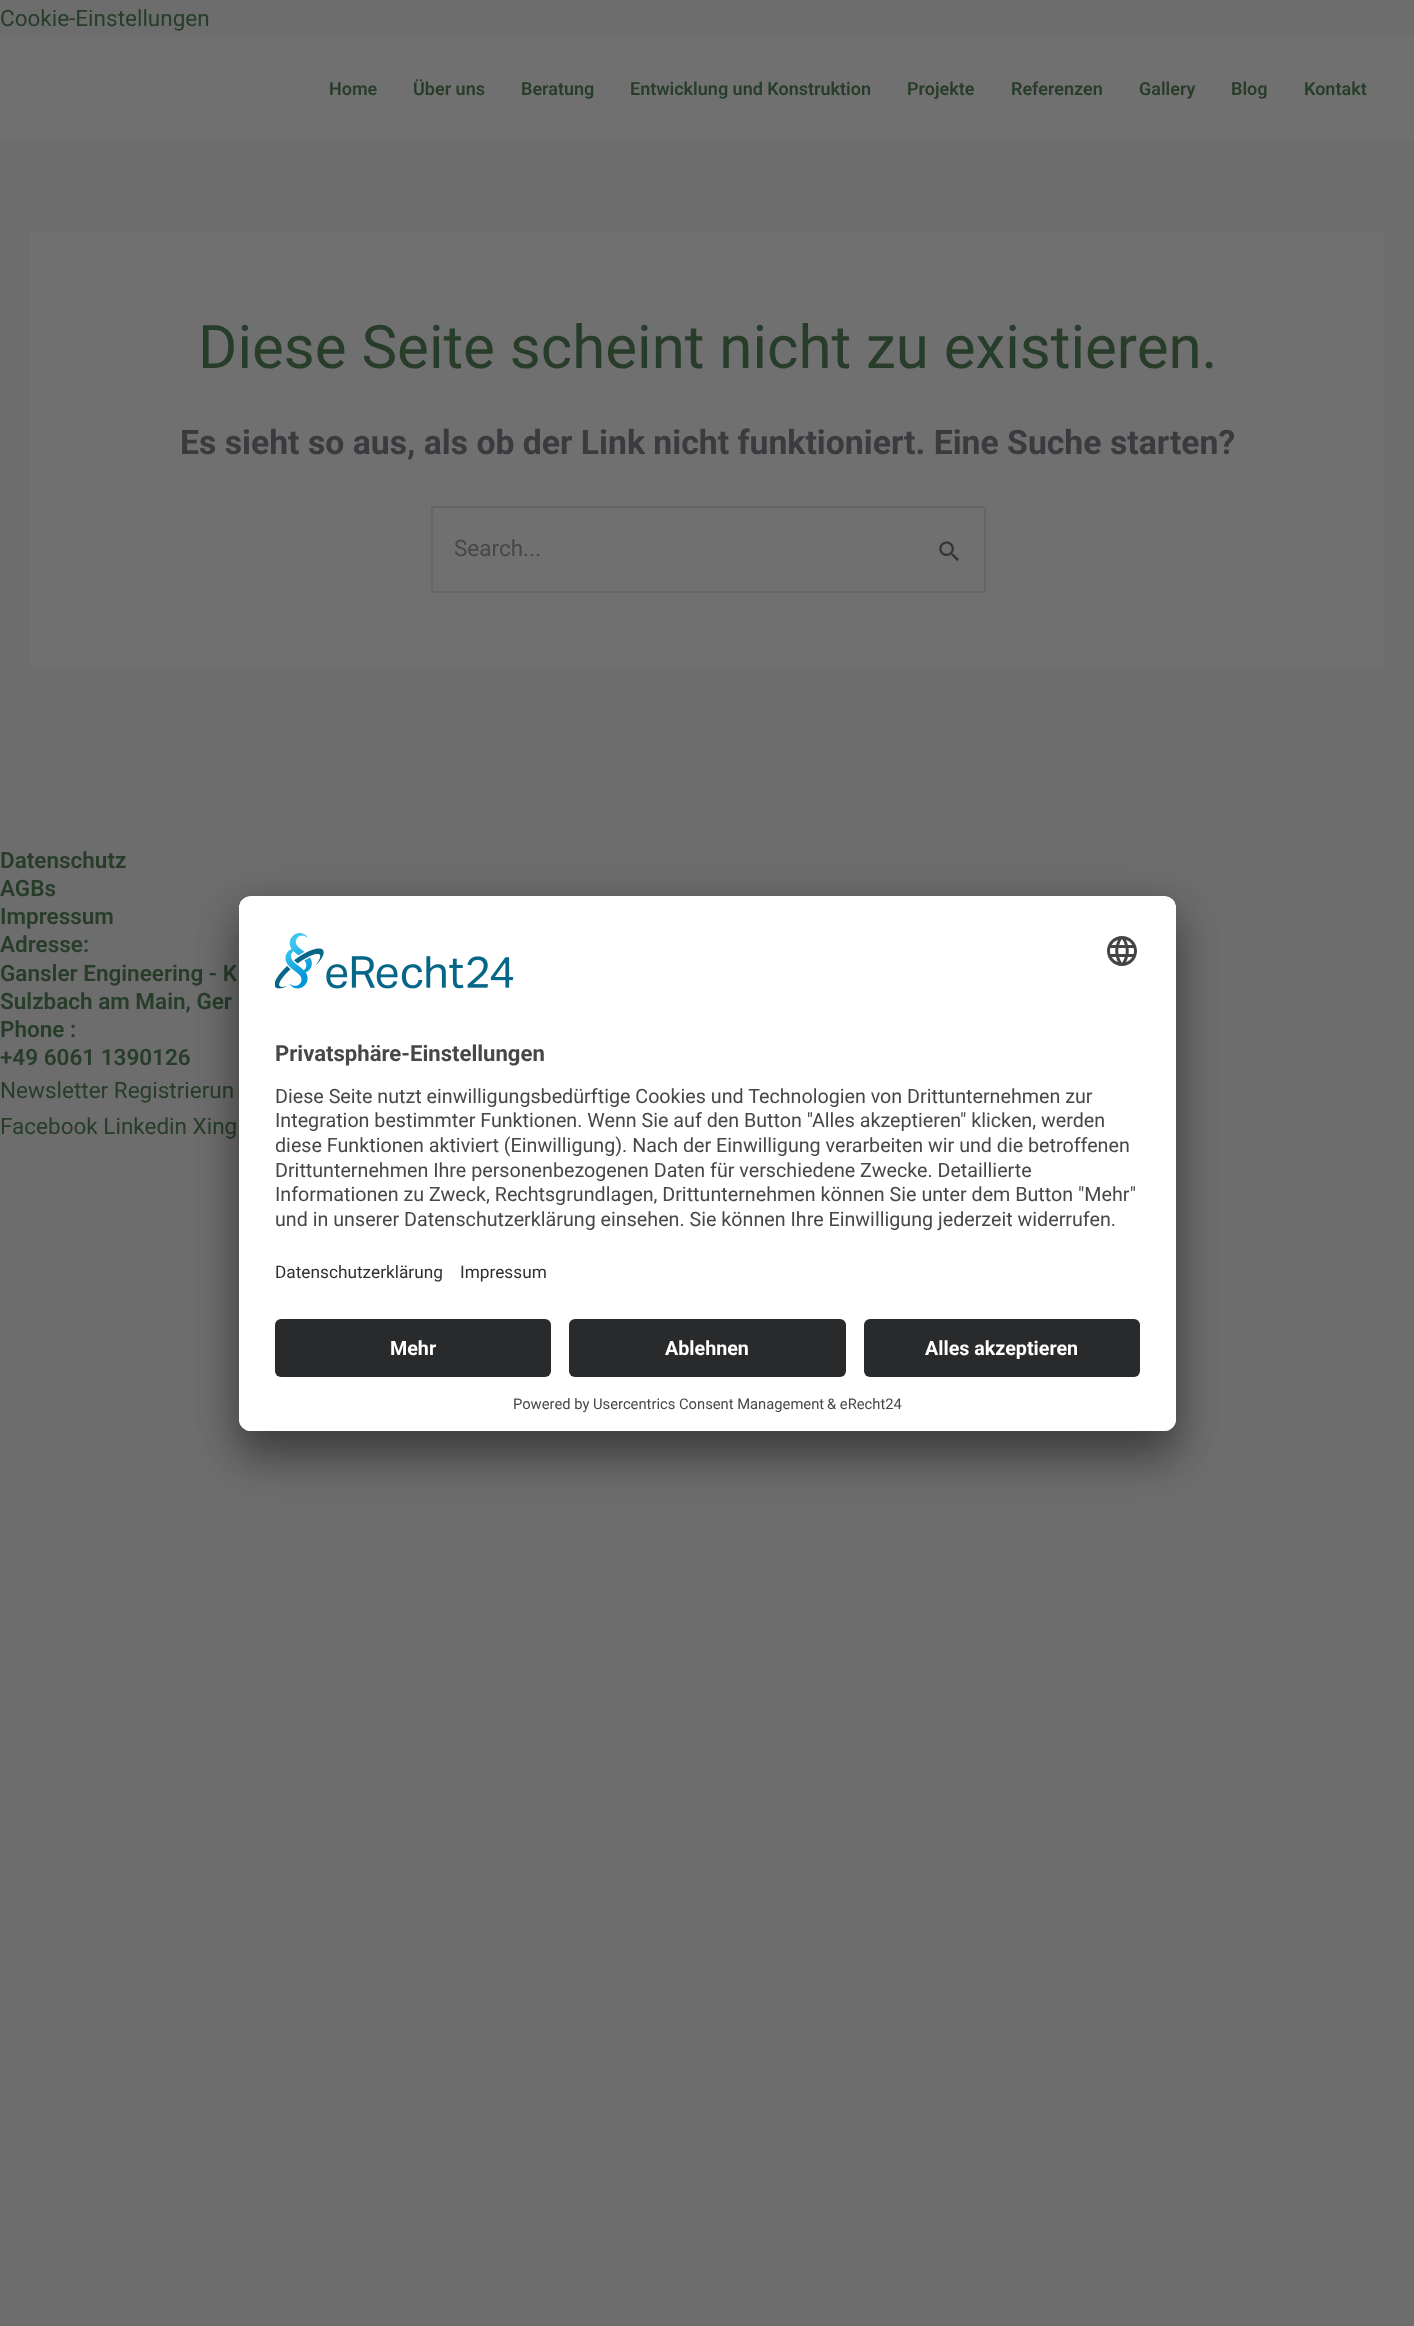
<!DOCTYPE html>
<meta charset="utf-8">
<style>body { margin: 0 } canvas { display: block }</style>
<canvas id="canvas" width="1414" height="2326"></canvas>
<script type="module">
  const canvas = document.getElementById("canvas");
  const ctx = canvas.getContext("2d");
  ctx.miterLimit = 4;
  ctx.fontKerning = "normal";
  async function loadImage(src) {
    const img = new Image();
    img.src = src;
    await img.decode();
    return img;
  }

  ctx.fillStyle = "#6d6d6d";
  ctx.fillRect(0, 0, 1414, 2326);
  ctx.font = "22.5px Roboto";
  ctx.fillStyle = "#273d2a";
  ctx.fillText("Cookie-Einstellungen", 0, 26);
  ctx.fillStyle = "#707070";
  ctx.fillRect(0, 36, 1414, 105);
  ctx.font = "600 18px Roboto";
  ctx.fillStyle = "#273d2a";
  ctx.fillText("Home", 329, 95);
  ctx.fillText("Über uns", 413, 95);
  ctx.fillText("Beratung", 521, 95);
  ctx.fillText("Entwicklung und Konstruktion", 630, 95);
  ctx.fillText("Projekte", 907, 95);
  ctx.fillText("Referenzen", 1011, 95);
  ctx.fillText("Gallery", 1139, 95);
  ctx.fillText("Blog", 1231, 95);
  ctx.fillText("Kontakt", 1304, 95);
  ctx.fillStyle = "#707070";
  ctx.fillRect(30, 231, 1355, 437);
  ctx.font = "60px Roboto";
  ctx.fillStyle = "#273d2a";
  ctx.fillText("Diese Seite scheint nicht zu existieren.", 198, 368);
  ctx.font = "bold 33.75px Roboto";
  ctx.fillStyle = "#3a3b3e";
  ctx.fillText("Es sieht so aus, als ob der Link nicht funktioniert. Eine Suche starten?", 180, 454);
  ctx.beginPath();
  ctx.roundRect(432, 507, 553, 85, 2);
  ctx.strokeStyle = "#666666";
  ctx.lineWidth = 2;
  ctx.stroke();
  ctx.font = "22.5px Roboto";
  ctx.fillStyle = "#474747";
  ctx.fillText("Search...", 454, 556);
  ctx.drawImage(await loadImage("img1.png"), 939, 541, 20, 20);
  ctx.font = "600 22.5px Roboto";
  ctx.fillStyle = "#273d2a";
  ctx.fillText("Datenschutz", 0, 868);
  ctx.fillText("AGBs", 0, 896);
  ctx.fillText("Impressum", 0, 924);
  ctx.fillText("Adresse:", 0, 952);
  ctx.fillText("Gansler Engineering - K", 0, 981);
  ctx.fillText("Sulzbach am Main, Ger", 0, 1009);
  ctx.fillText("Phone :", 0, 1037);
  ctx.fillText("+49 6061 1390126", 0, 1065);
  ctx.font = "22.5px Roboto";
  ctx.fillText("Newsletter Registrierun", 0, 1098);
  ctx.fillText("Facebook Linkedin Xing", 0, 1134);
  ctx.fillStyle = "rgba(0, 0, 0, 0.3)";
  ctx.filter = "blur(21px)";
  ctx.beginPath();
  ctx.roundRect(239, 926, 937, 535, 12);
  ctx.fill();
  ctx.filter = "none";
  ctx.fillStyle = "rgba(0, 0, 0, 0.22)";
  ctx.filter = "blur(19.5px)";
  ctx.beginPath();
  ctx.roundRect(239, 903, 937, 536, 12);
  ctx.fill();
  ctx.filter = "none";
  ctx.fillStyle = "#ffffff";
  ctx.beginPath();
  ctx.roundRect(239, 896, 937, 535, 12);
  ctx.fill();
  ctx.save();
  ctx.beginPath();
  ctx.roundRect(239, 896, 937, 535, 12);
  ctx.clip();
  ctx.beginPath();
  ctx.roundRect(239, 896, 937, 411, [12, 12, 0, 0]);
  ctx.clip();
  ctx.fillRect(239, 897, 937, 410);
  ctx.restore();
  ctx.drawImage(await loadImage("img2.png"), 275, 933, 239, 56);
  ctx.drawImage(await loadImage("img3.png"), 1107, 936, 30, 30);
  ctx.font = "bold 22.1px Roboto";
  ctx.fillStyle = "#474747";
  ctx.fillText("Privatsphäre-Einstellungen", 275, 1061);
  ctx.font = "19.7px Roboto";
  ctx.fillText("Diese Seite nutzt einwilligungsbedürftige Cookies und Technologien von Drittunternehmen zur", 275, 1103);
  ctx.fillText("Integration bestimmter Funktionen. Wenn Sie auf den Button \"Alles akzeptieren\" klicken, werden", 275, 1127);
  ctx.fillText("diese Funktionen aktiviert (Einwilligung). Nach der Einwilligung verarbeiten wir und die betroffenen", 275, 1152);
  ctx.fillText("Drittunternehmen Ihre personenbezogenen Daten für verschiedene Zwecke. Detaillierte", 275, 1177);
  ctx.fillText("Informationen zu Zweck, Rechtsgrundlagen, Drittunternehmen können Sie unter dem Button \"Mehr\"", 275, 1201);
  ctx.fillText("und in unserer Datenschutzerklärung einsehen. Sie können Ihre Einwilligung jederzeit widerrufen.", 275, 1226);
  ctx.font = "17.25px Roboto";
  ctx.fillStyle = "#303030";
  ctx.fillText("Datenschutzerklärung", 275, 1278);
  ctx.fillText("Impressum", 460, 1278);
  ctx.fillStyle = "#ffffff";
  ctx.beginPath();
  ctx.roundRect(239, 1307, 937, 124, [0, 0, 12, 12]);
  ctx.fill();
  ctx.fillStyle = "#292a2b";
  ctx.beginPath();
  ctx.roundRect(275, 1319, 276, 58, 6);
  ctx.fill();
  ctx.font = "bold 19.7px Roboto";
  ctx.fillStyle = "#ffffff";
  ctx.fillText("Mehr", 390, 1355);
  ctx.fillStyle = "#292a2b";
  ctx.beginPath();
  ctx.roundRect(569, 1319, 277, 58, 6);
  ctx.fill();
  ctx.fillStyle = "#ffffff";
  ctx.fillText("Ablehnen", 665, 1355);
  ctx.fillStyle = "#292a2b";
  ctx.beginPath();
  ctx.roundRect(864, 1319, 276, 58, 6);
  ctx.fill();
  ctx.fillStyle = "#ffffff";
  ctx.fillText("Alles akzeptieren", 925, 1355);
  ctx.font = "14.75px Roboto";
  ctx.fillStyle = "#474747";
  ctx.fillText("Powered by Usercentrics Consent Management", 513, 1409);
  ctx.fillText("& eRecht24", 827, 1409);
</script>
